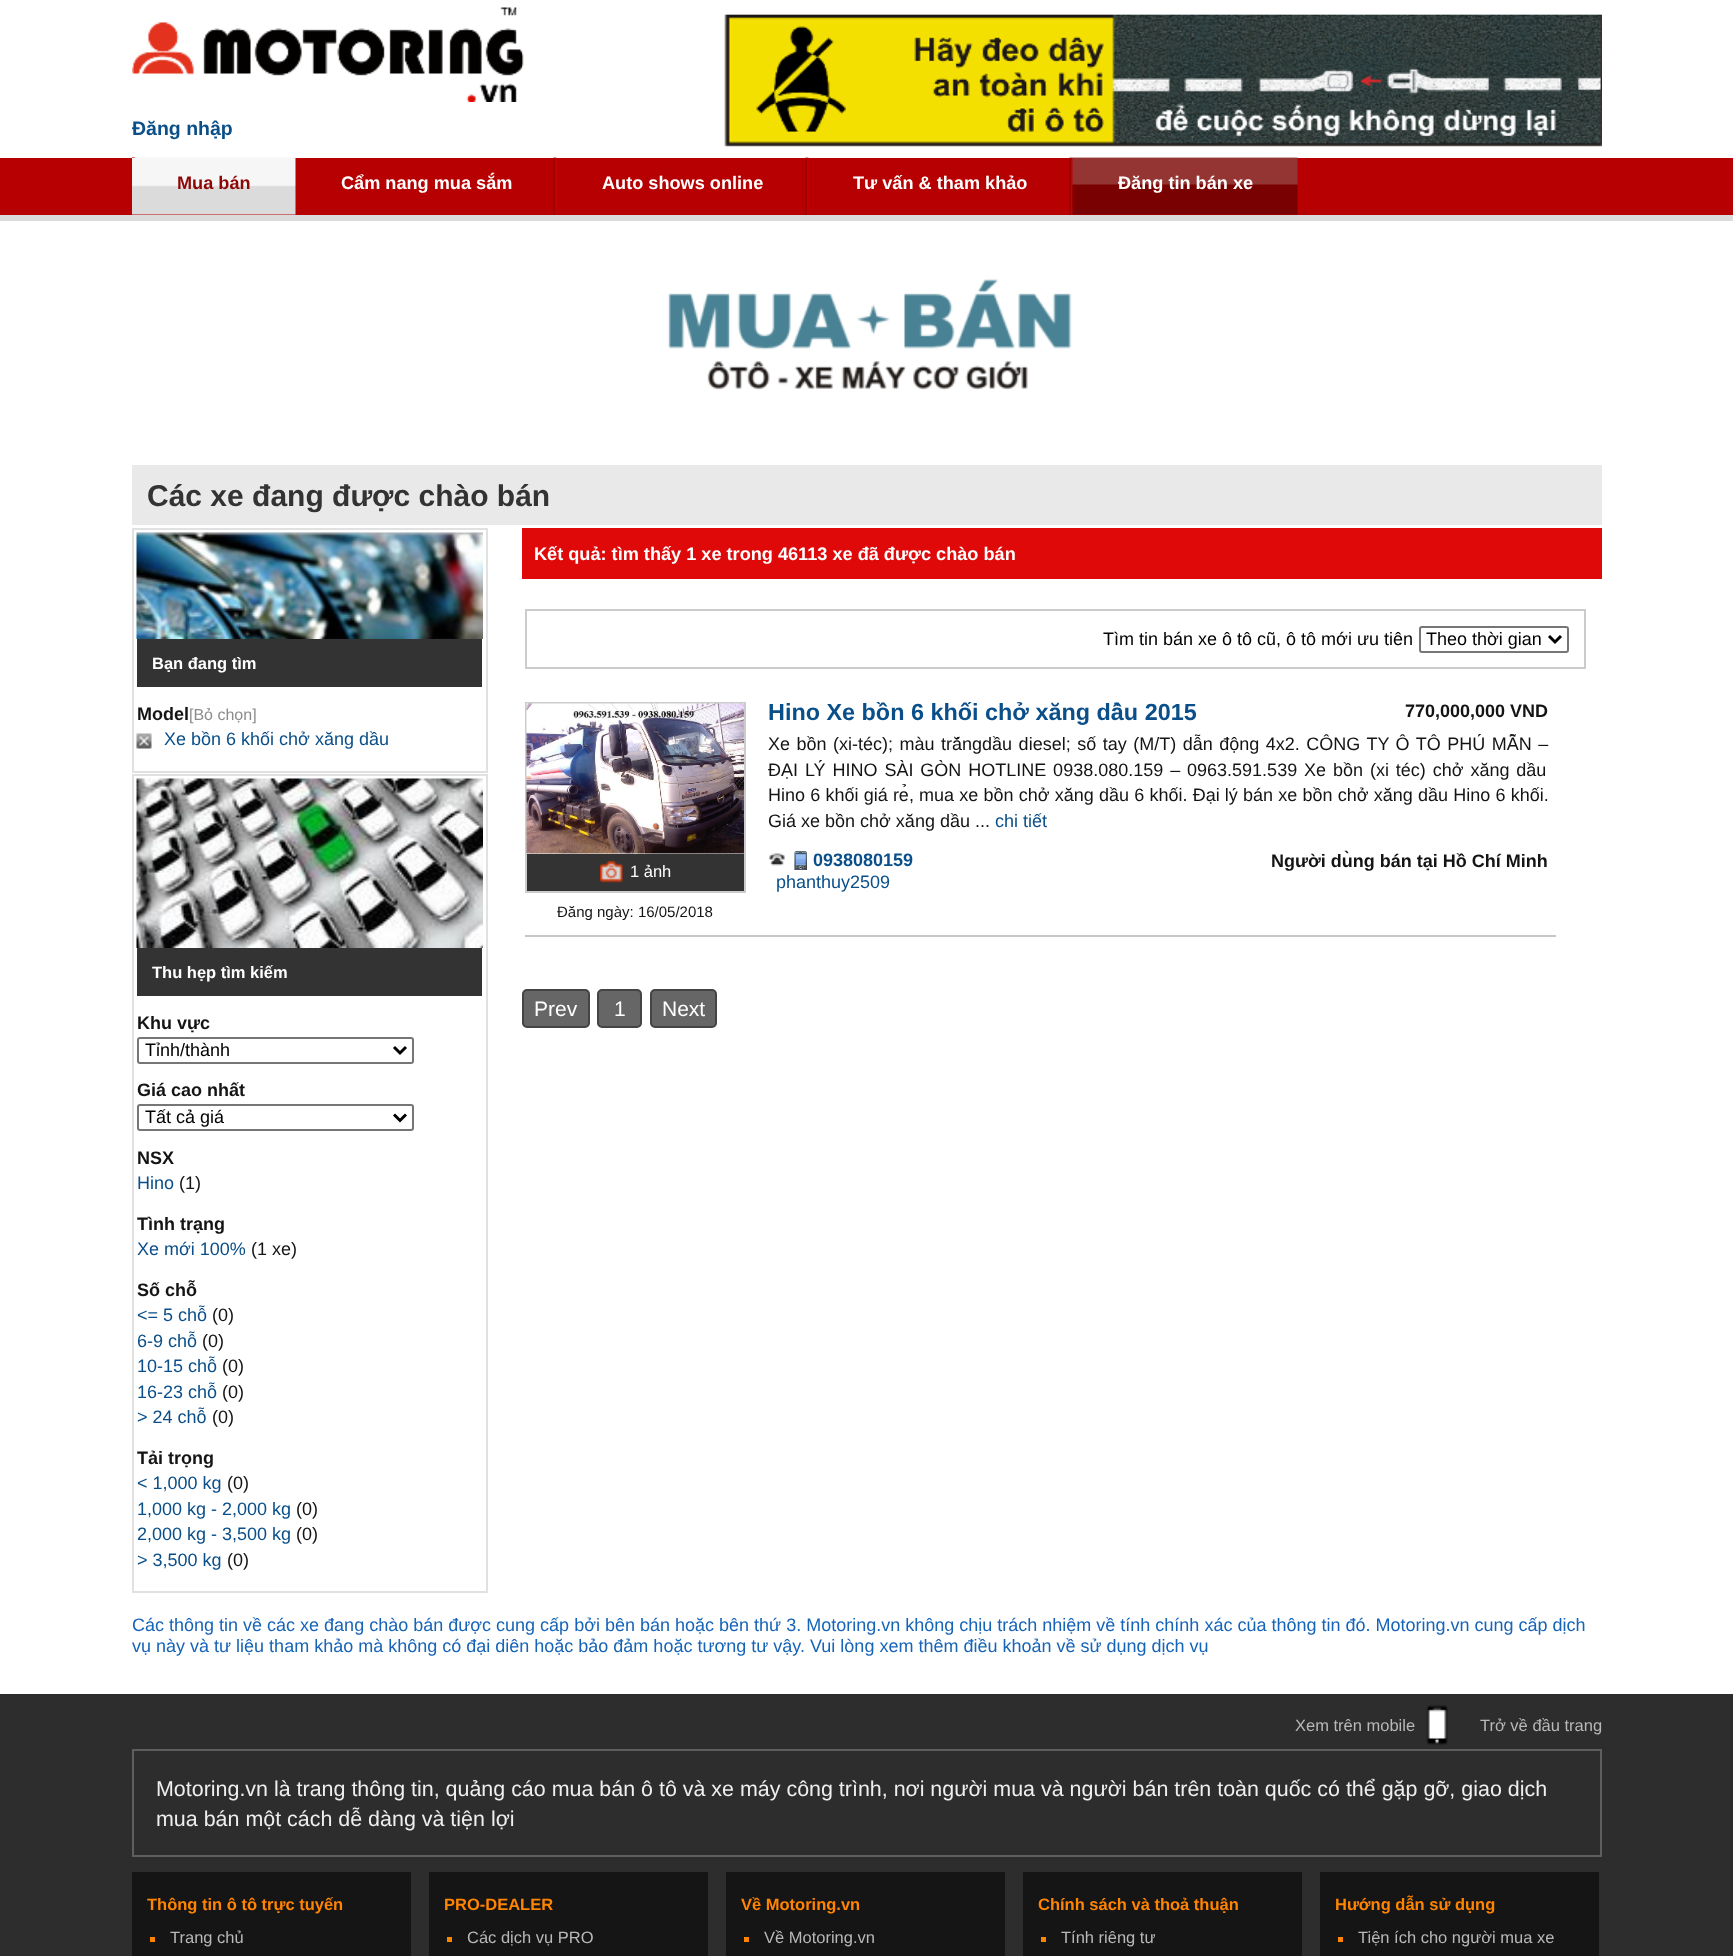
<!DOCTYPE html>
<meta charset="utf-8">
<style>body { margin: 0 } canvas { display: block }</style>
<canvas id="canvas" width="1733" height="1956"></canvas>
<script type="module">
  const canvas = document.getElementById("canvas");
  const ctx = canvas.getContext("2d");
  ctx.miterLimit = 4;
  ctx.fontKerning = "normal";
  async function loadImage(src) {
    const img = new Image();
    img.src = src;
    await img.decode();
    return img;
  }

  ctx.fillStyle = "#ffffff";
  ctx.fillRect(0, 0, 1733, 1956);
  ctx.drawImage(await loadImage("img1.png"), 132, 7, 392, 95);
  ctx.font = "bold 19.5px Liberation Sans";
  ctx.fillStyle = "#0a4f89";
  ctx.fillText("Đăng nhập", 132, 135);
  ctx.fillStyle = "#b60002";
  ctx.fillRect(0, 158, 1733, 57);
  ctx.drawImage(await loadImage("img4.png"), 553, 157, 4, 58);
  ctx.drawImage(await loadImage("img4.png"), 805, 157, 4, 58);
  ctx.drawImage(await loadImage("img4.png"), 1069, 157, 4, 58);
  ctx.drawImage(await loadImage("img5.png"), 1072, 157, 226, 58);
  ctx.drawImage(await loadImage("img2.png"), 522, 14, 1080, 144);
  ctx.fillStyle = "#dbdbdb";
  ctx.fillRect(0, 215, 1733, 6);
  ctx.fillStyle = "#b20001";
  ctx.fillRect(132, 157, 3, 58);
  ctx.drawImage(await loadImage("img3.png"), 132, 157, 164, 58);
  ctx.font = "bold 18.15px Liberation Sans";
  ctx.fillStyle = "#8d0707";
  ctx.fillText("Mua bán", 177, 189);
  ctx.fillStyle = "#ffffff";
  ctx.fillText("Cẩm nang mua sắm", 341, 189);
  ctx.fillText("Auto shows online", 602, 189);
  ctx.fillText("Tư vấn & tham khảo", 853, 189);
  ctx.fillText("Đăng tin bán xe", 1118, 189);
  ctx.drawImage(await loadImage("img6.png"), 668, 279, 404, 111);
  ctx.fillStyle = "#eae9e9";
  ctx.fillRect(132, 465, 1470, 60);
  ctx.font = "bold 30px Liberation Sans";
  ctx.fillStyle = "#333333";
  ctx.fillText("Các xe đang được chào bán", 147, 506);
  ctx.strokeStyle = "#e1e1e1";
  ctx.lineWidth = 2;
  ctx.strokeRect(133, 529, 354, 243);
  ctx.drawImage(await loadImage("img7.png"), 136, 532, 347, 107);
  ctx.fillRect(137, 639, 345, 48);
  ctx.font = "bold 16.5px Liberation Sans";
  ctx.fillStyle = "#ffffff";
  ctx.fillText("Bạn đang tìm", 152, 669);
  ctx.font = "bold 18px Liberation Sans";
  ctx.fillStyle = "#141414";
  ctx.fillText("Model", 137, 720);
  ctx.font = "16px Liberation Sans";
  ctx.fillStyle = "#8d8c8c";
  ctx.fillText("[Bỏ chọn]", 189, 720);
  ctx.drawImage(await loadImage("img8.png"), 136, 733, 16, 16);
  ctx.font = "18px Liberation Sans";
  ctx.fillStyle = "#0a4f89";
  ctx.fillText("Xe bồn 6 khối chở xăng dầu", 164, 745);
  ctx.strokeRect(133, 775, 354, 817);
  ctx.drawImage(await loadImage("img9.png"), 136, 778, 347, 170);
  ctx.fillStyle = "#333333";
  ctx.fillRect(137, 948, 345, 48);
  ctx.font = "bold 16.5px Liberation Sans";
  ctx.fillStyle = "#ffffff";
  ctx.fillText("Thu hẹp tìm kiếm", 152, 978);
  ctx.font = "bold 18px Liberation Sans";
  ctx.fillStyle = "#141414";
  ctx.fillText("Khu vực", 137, 1029);
  ctx.beginPath();
  ctx.roundRect(138, 1038, 275, 25, 2);
  ctx.strokeStyle = "#767676";
  ctx.stroke();
  ctx.beginPath();
  ctx.moveTo(394, 1047);
  ctx.lineTo(400, 1053);
  ctx.lineTo(406, 1047);
  ctx.strokeStyle = "#000000";
  ctx.lineWidth = 3;
  ctx.stroke();
  ctx.font = "18px Liberation Sans";
  ctx.fillStyle = "#000000";
  ctx.fillText("Tỉnh/thành", 145, 1056);
  ctx.font = "bold 18px Liberation Sans";
  ctx.fillStyle = "#141414";
  ctx.fillText("Giá cao nhất", 137, 1096);
  ctx.beginPath();
  ctx.roundRect(138, 1105, 275, 25, 2);
  ctx.strokeStyle = "#767676";
  ctx.lineWidth = 2;
  ctx.stroke();
  ctx.beginPath();
  ctx.moveTo(394, 1114.5);
  ctx.lineTo(400, 1120.5);
  ctx.lineTo(406, 1114.5);
  ctx.strokeStyle = "#000000";
  ctx.lineWidth = 3;
  ctx.stroke();
  ctx.font = "18px Liberation Sans";
  ctx.fillStyle = "#000000";
  ctx.fillText("Tất cả giá", 145, 1123);
  ctx.font = "bold 18px Liberation Sans";
  ctx.fillStyle = "#141414";
  ctx.fillText("NSX", 137, 1164);
  ctx.font = "18px Liberation Sans";
  ctx.fillStyle = "#0a4f89";
  ctx.fillText("Hino", 137, 1189);
  ctx.fillStyle = "#141414";
  ctx.fillText("(1)", 179, 1189);
  ctx.font = "bold 18px Liberation Sans";
  ctx.fillText("Tình trạng", 137, 1230);
  ctx.font = "18px Liberation Sans";
  ctx.fillStyle = "#0a4f89";
  ctx.fillText("Xe mới 100%", 137, 1255);
  ctx.fillStyle = "#141414";
  ctx.fillText("(1 xe)", 251, 1255);
  ctx.font = "bold 18px Liberation Sans";
  ctx.fillText("Số chỗ", 137, 1296);
  ctx.font = "18px Liberation Sans";
  ctx.fillStyle = "#0a4f89";
  ctx.fillText("<= 5 chỗ", 137, 1321);
  ctx.fillStyle = "#141414";
  ctx.fillText("(0)", 212, 1321);
  ctx.fillStyle = "#0a4f89";
  ctx.fillText("6-9 chỗ", 137, 1347);
  ctx.fillStyle = "#141414";
  ctx.fillText("(0)", 202, 1347);
  ctx.fillStyle = "#0a4f89";
  ctx.fillText("10-15 chỗ", 137, 1372);
  ctx.fillStyle = "#141414";
  ctx.fillText("(0)", 222, 1372);
  ctx.fillStyle = "#0a4f89";
  ctx.fillText("16-23 chỗ", 137, 1398);
  ctx.fillStyle = "#141414";
  ctx.fillText("(0)", 222, 1398);
  ctx.fillStyle = "#0a4f89";
  ctx.fillText("> 24 chỗ", 137, 1423);
  ctx.fillStyle = "#141414";
  ctx.fillText("(0)", 212, 1423);
  ctx.font = "bold 18px Liberation Sans";
  ctx.fillText("Tải trọng", 137, 1464);
  ctx.font = "18px Liberation Sans";
  ctx.fillStyle = "#0a4f89";
  ctx.fillText("< 1,000 kg", 137, 1489);
  ctx.fillStyle = "#141414";
  ctx.fillText("(0)", 227, 1489);
  ctx.fillStyle = "#0a4f89";
  ctx.fillText("1,000 kg - 2,000 kg", 137, 1515);
  ctx.fillStyle = "#141414";
  ctx.fillText("(0)", 296, 1515);
  ctx.fillStyle = "#0a4f89";
  ctx.fillText("2,000 kg - 3,500 kg", 137, 1540);
  ctx.fillStyle = "#141414";
  ctx.fillText("(0)", 296, 1540);
  ctx.fillStyle = "#0a4f89";
  ctx.fillText("> 3,500 kg", 137, 1566);
  ctx.fillStyle = "#141414";
  ctx.fillText("(0)", 227, 1566);
  ctx.fillStyle = "#df0909";
  ctx.fillRect(522, 528, 1080, 51);
  ctx.font = "bold 18.15px Liberation Sans";
  ctx.fillStyle = "#ffffff";
  ctx.fillText("Kết quả: tìm thấy 1 xe trong 46113 xe đã được chào bán", 534, 560);
  ctx.strokeStyle = "#cccccc";
  ctx.lineWidth = 2;
  ctx.strokeRect(526, 610, 1059, 58);
  ctx.font = "18px Liberation Sans";
  ctx.fillStyle = "#000000";
  ctx.fillText("Tìm tin bán xe ô tô cũ, ô tô mới ưu tiên", 1103, 645);
  ctx.beginPath();
  ctx.roundRect(1420, 627, 148, 25, 2);
  ctx.strokeStyle = "#767676";
  ctx.stroke();
  ctx.beginPath();
  ctx.moveTo(1549, 636);
  ctx.lineTo(1555, 642);
  ctx.lineTo(1561, 636);
  ctx.strokeStyle = "#000000";
  ctx.lineWidth = 3;
  ctx.stroke();
  ctx.fillText("Theo thời gian", 1426, 645);
  ctx.strokeStyle = "#cccccc";
  ctx.lineWidth = 2;
  ctx.strokeRect(526, 703, 219, 189);
  ctx.drawImage(await loadImage("img10.png"), 526, 703, 218, 151);
  ctx.fillStyle = "#333333";
  ctx.fillRect(527, 854, 217, 37);
  ctx.drawImage(await loadImage("img11.png"), 600, 861, 23, 22);
  ctx.font = "16.5px Liberation Sans";
  ctx.fillStyle = "#ffffff";
  ctx.fillText("1 ảnh", 630, 877);
  ctx.font = "15px Liberation Sans";
  ctx.fillStyle = "#141414";
  ctx.fillText("Đăng ngày: 16/05/2018", 557, 917);
  ctx.font = "bold 23.4px Liberation Sans";
  ctx.fillStyle = "#0a4f89";
  ctx.fillText("Hino Xe bồn 6 khối chở xăng dầu 2015", 768, 720);
  ctx.font = "bold 18px Liberation Sans";
  ctx.fillStyle = "#141414";
  ctx.fillText("770,000,000 VND", 1405, 717);
  ctx.wordSpacing = "1.5px";
  ctx.font = "18px Liberation Sans";
  ctx.fillText("Xe bồn (xi-téc); màu trắngdầu diesel; số tay (M/T) dẫn động 4x2. CÔNG TY Ô TÔ PHÚ MẪN –", 768, 750);
  ctx.wordSpacing = "1.9px";
  ctx.fillText("ĐẠI LÝ HINO SÀI GÒN HOTLINE 0938.080.159 – 0963.591.539 Xe bồn (xi téc) chở xăng dầu", 768, 776);
  ctx.wordSpacing = "0.2px";
  ctx.fillText("Hino 6 khối giá rẻ, mua xe bồn chở xăng dầu 6 khối. Đại lý bán xe bồn chở xăng dầu Hino 6 khối.", 768, 801);
  ctx.wordSpacing = "0px";
  ctx.fillText("Giá xe bồn chở xăng dầu ...", 768, 827);
  ctx.fillStyle = "#0a4f89";
  ctx.fillText("chi tiết", 995, 827);
  ctx.drawImage(await loadImage("img12.png"), 769, 853, 16, 13);
  ctx.drawImage(await loadImage("img13.png"), 794, 851, 13, 19);
  ctx.font = "bold 18px Liberation Sans";
  ctx.fillText("0938080159", 813, 866);
  ctx.font = "18px Liberation Sans";
  ctx.fillText("phanthuy2509", 776, 888);
  ctx.font = "bold 18px Liberation Sans";
  ctx.fillStyle = "#141414";
  ctx.fillText("Người dùng bán tại Hồ Chí Minh", 1271, 867);
  ctx.fillStyle = "#c7c6c6";
  ctx.fillRect(525, 935, 1031, 2);
  ctx.fillStyle = "#666666";
  ctx.beginPath();
  ctx.roundRect(523, 990, 66, 37, 4);
  ctx.fill();
  ctx.strokeStyle = "#444444";
  ctx.stroke();
  ctx.font = "21px Liberation Sans";
  ctx.fillStyle = "#ffffff";
  ctx.fillText("Prev", 534, 1016);
  ctx.fillStyle = "#666666";
  ctx.beginPath();
  ctx.roundRect(598, 990, 43, 37, 4);
  ctx.fill();
  ctx.stroke();
  ctx.fillStyle = "#ffffff";
  ctx.fillText("1", 614, 1016);
  ctx.fillStyle = "#666666";
  ctx.beginPath();
  ctx.roundRect(651, 990, 65, 37, 4);
  ctx.fill();
  ctx.stroke();
  ctx.fillStyle = "#ffffff";
  ctx.fillText("Next", 662, 1016);
  ctx.font = "18px Liberation Sans";
  ctx.fillStyle = "#1664b8";
  ctx.fillText("Các thông tin về các xe đang chào bán được cung cấp bởi bên bán hoặc bên thứ 3. Motoring.vn không chịu trách nhiệm về tính chính xác của thông tin đó. Motoring.vn cung cấp dịch", 132, 1631);
  ctx.fillText("vụ này và tư liệu tham khảo mà không có đại diên hoặc bảo đảm hoặc tương tư vậy. Vui lòng xem thêm điều khoản về sử dụng dịch vụ", 132, 1652);
  ctx.fillStyle = "#2d2d2d";
  ctx.fillRect(0, 1694, 1733, 262);
  ctx.font = "16.5px Liberation Sans";
  ctx.fillStyle = "#b8b8b8";
  ctx.fillText("Xem trên mobile", 1295, 1731);
  ctx.drawImage(await loadImage("img14.png"), 1426, 1705, 22, 40);
  ctx.fillText("Trở về đầu trang", 1480, 1731);
  ctx.strokeStyle = "#5e5e5e";
  ctx.strokeRect(133, 1750, 1468, 106);
  ctx.font = "21.45px Liberation Sans";
  ctx.fillStyle = "#efefef";
  ctx.fillText("Motoring.vn là trang thông tin, quảng cáo mua bán ô tô và xe máy công trình, nơi người mua và người bán trên toàn quốc có thể gặp gỡ, giao dịch", 156, 1796);
  ctx.fillText("mua bán một cách dễ dàng và tiện lợi", 156, 1826);
  ctx.fillStyle = "#151515";
  ctx.fillRect(132, 1872, 279, 84);
  ctx.font = "bold 16.5px Liberation Sans";
  ctx.fillStyle = "#ff8400";
  ctx.fillText("Thông tin ô tô trực tuyến", 147, 1910);
  ctx.fillRect(150, 1937, 5, 5);
  ctx.font = "16.5px Liberation Sans";
  ctx.fillStyle = "#b8b8b8";
  ctx.fillText("Trang chủ", 170, 1943);
  ctx.fillStyle = "#151515";
  ctx.fillRect(429, 1872, 279, 84);
  ctx.font = "bold 16.5px Liberation Sans";
  ctx.fillStyle = "#ff8400";
  ctx.fillText("PRO-DEALER", 444, 1910);
  ctx.fillRect(447, 1937, 5, 5);
  ctx.font = "16.5px Liberation Sans";
  ctx.fillStyle = "#b8b8b8";
  ctx.fillText("Các dịch vụ PRO", 467, 1943);
  ctx.fillStyle = "#151515";
  ctx.fillRect(726, 1872, 279, 84);
  ctx.font = "bold 16.5px Liberation Sans";
  ctx.fillStyle = "#ff8400";
  ctx.fillText("Về Motoring.vn", 741, 1910);
  ctx.fillRect(744, 1937, 5, 5);
  ctx.font = "16.5px Liberation Sans";
  ctx.fillStyle = "#b8b8b8";
  ctx.fillText("Về Motoring.vn", 764, 1943);
  ctx.fillStyle = "#151515";
  ctx.fillRect(1023, 1872, 279, 84);
  ctx.font = "bold 16.5px Liberation Sans";
  ctx.fillStyle = "#ff8400";
  ctx.fillText("Chính sách và thoả thuận", 1038, 1910);
  ctx.fillRect(1041, 1937, 5, 5);
  ctx.font = "16.5px Liberation Sans";
  ctx.fillStyle = "#b8b8b8";
  ctx.fillText("Tính riêng tư", 1061, 1943);
  ctx.fillStyle = "#151515";
  ctx.fillRect(1320, 1872, 279, 84);
  ctx.font = "bold 16.5px Liberation Sans";
  ctx.fillStyle = "#ff8400";
  ctx.fillText("Hướng dẫn sử dụng", 1335, 1910);
  ctx.fillRect(1338, 1937, 5, 5);
  ctx.font = "16.5px Liberation Sans";
  ctx.fillStyle = "#b8b8b8";
  ctx.fillText("Tiện ích cho người mua xe", 1358, 1943);
</script>
